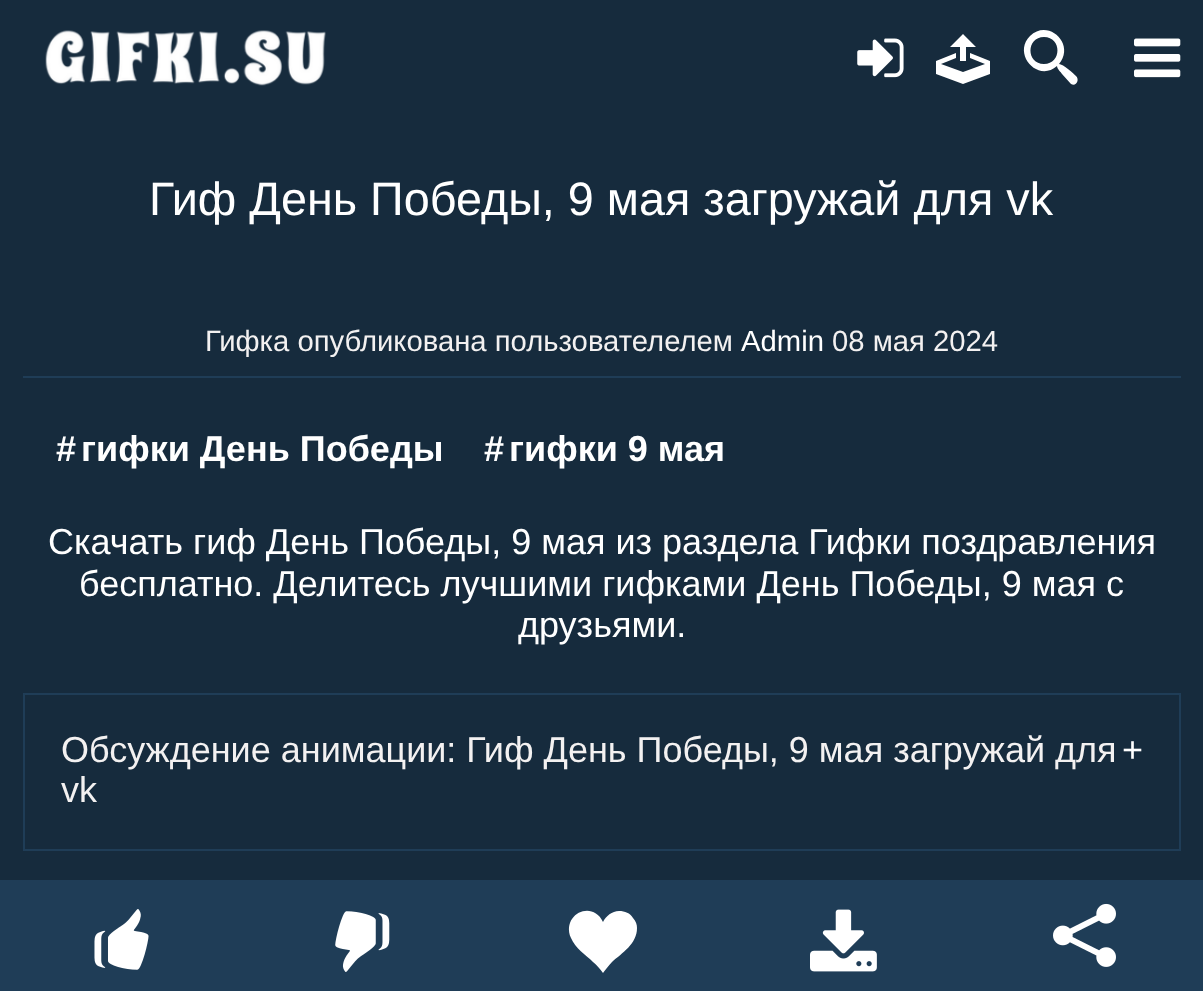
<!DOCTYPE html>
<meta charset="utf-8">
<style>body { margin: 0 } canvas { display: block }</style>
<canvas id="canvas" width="1203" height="991"></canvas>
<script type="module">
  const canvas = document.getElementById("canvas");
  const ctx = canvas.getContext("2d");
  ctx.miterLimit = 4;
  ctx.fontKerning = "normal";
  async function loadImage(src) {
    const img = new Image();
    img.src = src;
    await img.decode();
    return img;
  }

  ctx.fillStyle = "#162b3d";
  ctx.fillRect(0, 0, 1203, 991);
  ctx.drawImage(await loadImage("img1.png"), 45, 30, 281, 56);
  ctx.drawImage(await loadImage("img2.png"), 857, 38, 47, 40);
  ctx.fillStyle = "#ffffff";
  ctx.beginPath();
  ctx.moveTo(960, 61);
  ctx.lineTo(966, 61);
  ctx.lineTo(966, 47);
  ctx.lineTo(976, 47);
  ctx.lineTo(963, 34);
  ctx.lineTo(950, 47);
  ctx.lineTo(960, 47);
  ctx.closePath();
  ctx.moveTo(970, 53);
  ctx.lineTo(970, 58);
  ctx.lineTo(985, 64);
  ctx.lineTo(963, 72);
  ctx.lineTo(941, 64);
  ctx.lineTo(956, 58);
  ctx.lineTo(956, 53);
  ctx.lineTo(936, 61);
  ctx.lineTo(936, 74);
  ctx.lineTo(963, 84);
  ctx.lineTo(990, 74);
  ctx.lineTo(990, 61);
  ctx.closePath();
  ctx.fill();
  ctx.beginPath();
  ctx.moveTo(1076, 76);
  ctx.bezierCurveTo(1074, 74, 1063, 64, 1059, 64);
  ctx.bezierCurveTo(1076, 44, 1048, 18, 1030, 36);
  ctx.bezierCurveTo(1012, 54, 1038, 83, 1057, 66);
  ctx.bezierCurveTo(1057, 69, 1061, 72, 1062, 74);
  ctx.lineTo(1071, 84);
  ctx.bezierCurveTo(1076, 87, 1080, 80, 1076, 76);
  ctx.closePath();
  ctx.moveTo(1044, 64);
  ctx.bezierCurveTo(1026, 64, 1026, 37, 1044, 37);
  ctx.bezierCurveTo(1062, 37, 1062, 64, 1044, 64);
  ctx.closePath();
  ctx.fill();
  ctx.drawImage(await loadImage("img3.png"), 1134, 38, 47, 40);
  ctx.font = "46.75px Liberation Sans";
  ctx.fillText("Гиф День Победы, 9 мая загружай для vk", 149, 215);
  ctx.fillStyle = "#1f3d57";
  ctx.fillRect(23, 376, 1158, 2);
  ctx.font = "29.25px Liberation Sans";
  ctx.fillStyle = "#f3f1f1";
  ctx.fillText("Гифка опубликована пользователелем", 205, 351);
  ctx.fillStyle = "#ffffff";
  ctx.fillText("Admin", 741, 351);
  ctx.fillStyle = "#f3f1f1";
  ctx.fillText("08 мая 2024", 832, 351);
  ctx.font = "bold 36px Liberation Sans";
  ctx.fillStyle = "#ffffff";
  ctx.fillText("#", 56, 461);
  ctx.fillText("гифки День Победы", 81, 461);
  ctx.fillText("#", 484, 461);
  ctx.fillText("гифки 9 мая", 509, 461);
  ctx.font = "36px Liberation Sans";
  ctx.fillText("Скачать гиф День Победы, 9 мая из раздела Гифки поздравления", 48, 554);
  ctx.fillText("бесплатно. Делитесь лучшими гифками День Победы, 9 мая с", 79, 596);
  ctx.fillText("друзьями.", 518, 637);
  ctx.strokeStyle = "#1f3d57";
  ctx.lineWidth = 2;
  ctx.strokeRect(24, 694, 1156, 156);
  ctx.fillStyle = "#f3f1f1";
  ctx.fillText("Обсуждение анимации: Гиф День Победы, 9 мая загружай для", 61, 762);
  ctx.fillStyle = "#ffffff";
  ctx.fillText("+", 1122, 762);
  ctx.fillStyle = "#f3f1f1";
  ctx.fillText("vk", 61, 802);
  ctx.fillStyle = "#1f3d57";
  ctx.fillRect(0, 880, 1203, 111);
  ctx.drawImage(await loadImage("img4.png"), 94, 909, 55, 61);
  ctx.drawImage(await loadImage("img5.png"), 335, 911, 55, 61);
  ctx.fillStyle = "#ffffff";
  ctx.beginPath();
  ctx.moveTo(619, 911);
  ctx.bezierCurveTo(612, 911, 606, 916, 603, 922);
  ctx.bezierCurveTo(592, 899, 561, 915, 571, 938);
  ctx.bezierCurveTo(575, 948, 586, 955, 593, 962);
  ctx.bezierCurveTo(597, 965, 600, 969, 603, 973);
  ctx.bezierCurveTo(606, 969, 609, 965, 612, 962);
  ctx.bezierCurveTo(622, 953, 637, 944, 637, 928);
  ctx.bezierCurveTo(637, 925, 636, 921, 633, 918);
  ctx.bezierCurveTo(630, 913, 625, 911, 619, 911);
  ctx.closePath();
  ctx.fill();
  ctx.drawImage(await loadImage("img6.png"), 810, 909, 67, 63);
  ctx.drawImage(await loadImage("img7.png"), 1053, 903, 63, 64);
</script>
